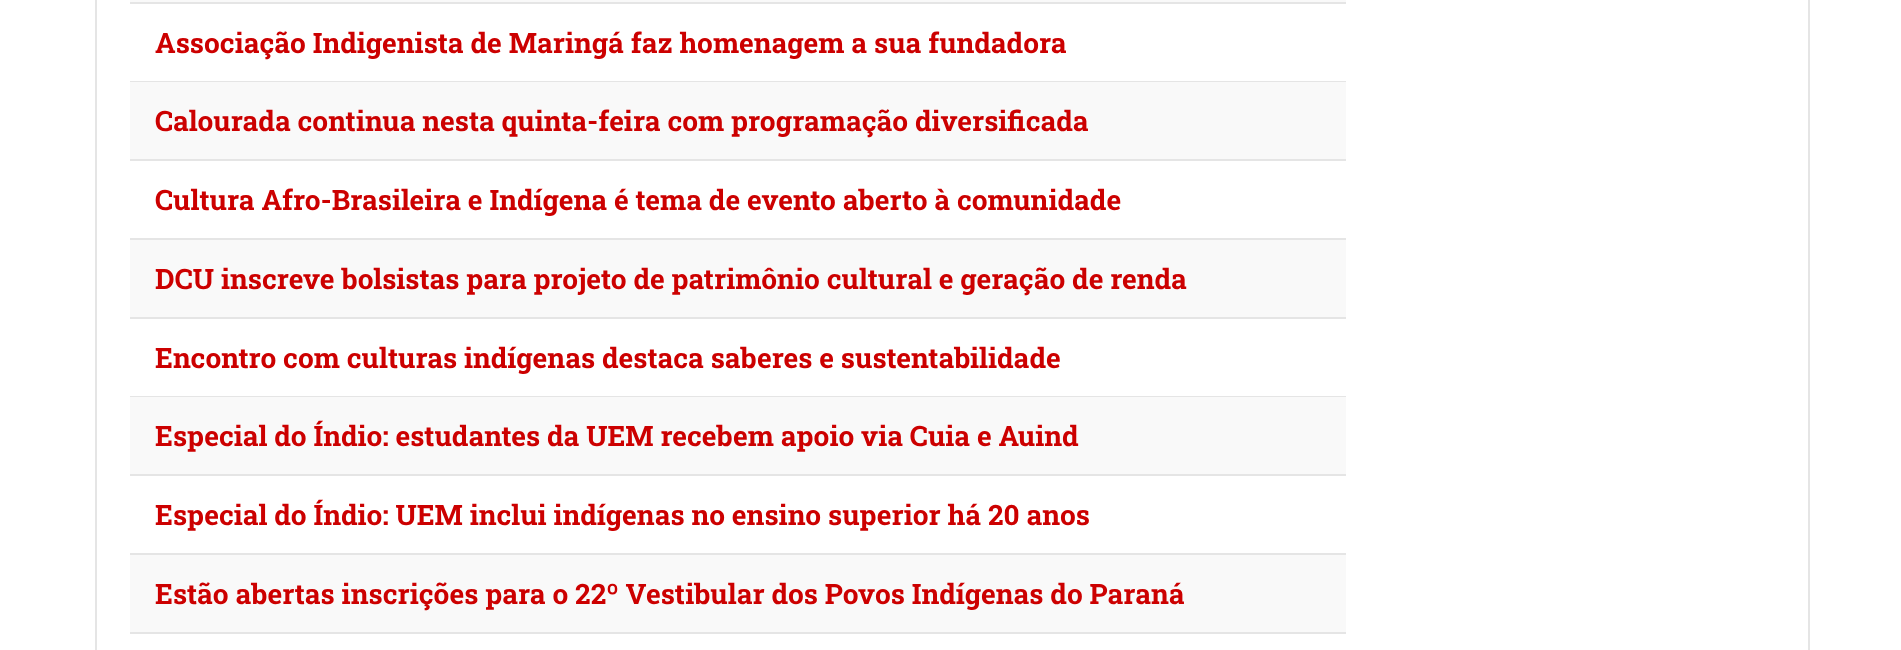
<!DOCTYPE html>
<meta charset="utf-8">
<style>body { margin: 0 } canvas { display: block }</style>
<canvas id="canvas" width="1901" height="650"></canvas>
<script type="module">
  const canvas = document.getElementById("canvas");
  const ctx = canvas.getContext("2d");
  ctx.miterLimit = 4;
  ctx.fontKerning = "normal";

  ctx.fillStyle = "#ffffff";
  ctx.fillRect(0, 0, 1901, 650);
  ctx.strokeStyle = "#e5e5e5";
  ctx.lineWidth = 2;
  ctx.strokeRect(96, -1, 1713, 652);
  ctx.fillStyle = "#f9f9f9";
  ctx.fillRect(130, 0, 1216, 2);
  ctx.fillStyle = "#e5e5e5";
  ctx.fillRect(130, 2, 1216, 2);
  ctx.fillRect(130, 81, 1216, 1);
  ctx.font = "bold 28px Roboto Slab";
  ctx.fillStyle = "#cc0000";
  ctx.fillText("Associação Indigenista de Maringá faz homenagem a sua fundadora", 155, 53);
  ctx.fillStyle = "#f9f9f9";
  ctx.fillRect(130, 82, 1216, 77);
  ctx.fillStyle = "#e5e5e5";
  ctx.fillRect(130, 159, 1216, 2);
  ctx.fillStyle = "#cc0000";
  ctx.fillText("Calourada continua nesta quinta-feira com programação diversificada", 155, 131);
  ctx.fillStyle = "#e5e5e5";
  ctx.fillRect(130, 238, 1216, 2);
  ctx.fillStyle = "#cc0000";
  ctx.fillText("Cultura Afro-Brasileira e Indígena é tema de evento aberto à comunidade", 155, 210);
  ctx.fillStyle = "#f9f9f9";
  ctx.fillRect(130, 240, 1216, 77);
  ctx.fillStyle = "#e5e5e5";
  ctx.fillRect(130, 317, 1216, 2);
  ctx.fillStyle = "#cc0000";
  ctx.fillText("DCU inscreve bolsistas para projeto de patrimônio cultural e geração de renda", 155, 289);
  ctx.fillStyle = "#e5e5e5";
  ctx.fillRect(130, 396, 1216, 1);
  ctx.fillStyle = "#cc0000";
  ctx.fillText("Encontro com culturas indígenas destaca saberes e sustentabilidade", 155, 368);
  ctx.fillStyle = "#f9f9f9";
  ctx.fillRect(130, 397, 1216, 77);
  ctx.fillStyle = "#e5e5e5";
  ctx.fillRect(130, 474, 1216, 2);
  ctx.fillStyle = "#cc0000";
  ctx.fillText("Especial do Índio: estudantes da UEM recebem apoio via Cuia e Auind", 155, 446);
  ctx.fillStyle = "#e5e5e5";
  ctx.fillRect(130, 553, 1216, 2);
  ctx.fillStyle = "#cc0000";
  ctx.fillText("Especial do Índio: UEM inclui indígenas no ensino superior há 20 anos", 155, 525);
  ctx.fillStyle = "#f9f9f9";
  ctx.fillRect(130, 555, 1216, 77);
  ctx.fillStyle = "#e5e5e5";
  ctx.fillRect(130, 632, 1216, 2);
  ctx.fillStyle = "#cc0000";
  ctx.fillText("Estão abertas inscrições para o 22º Vestibular dos Povos Indígenas do Paraná", 155, 604);
</script>
